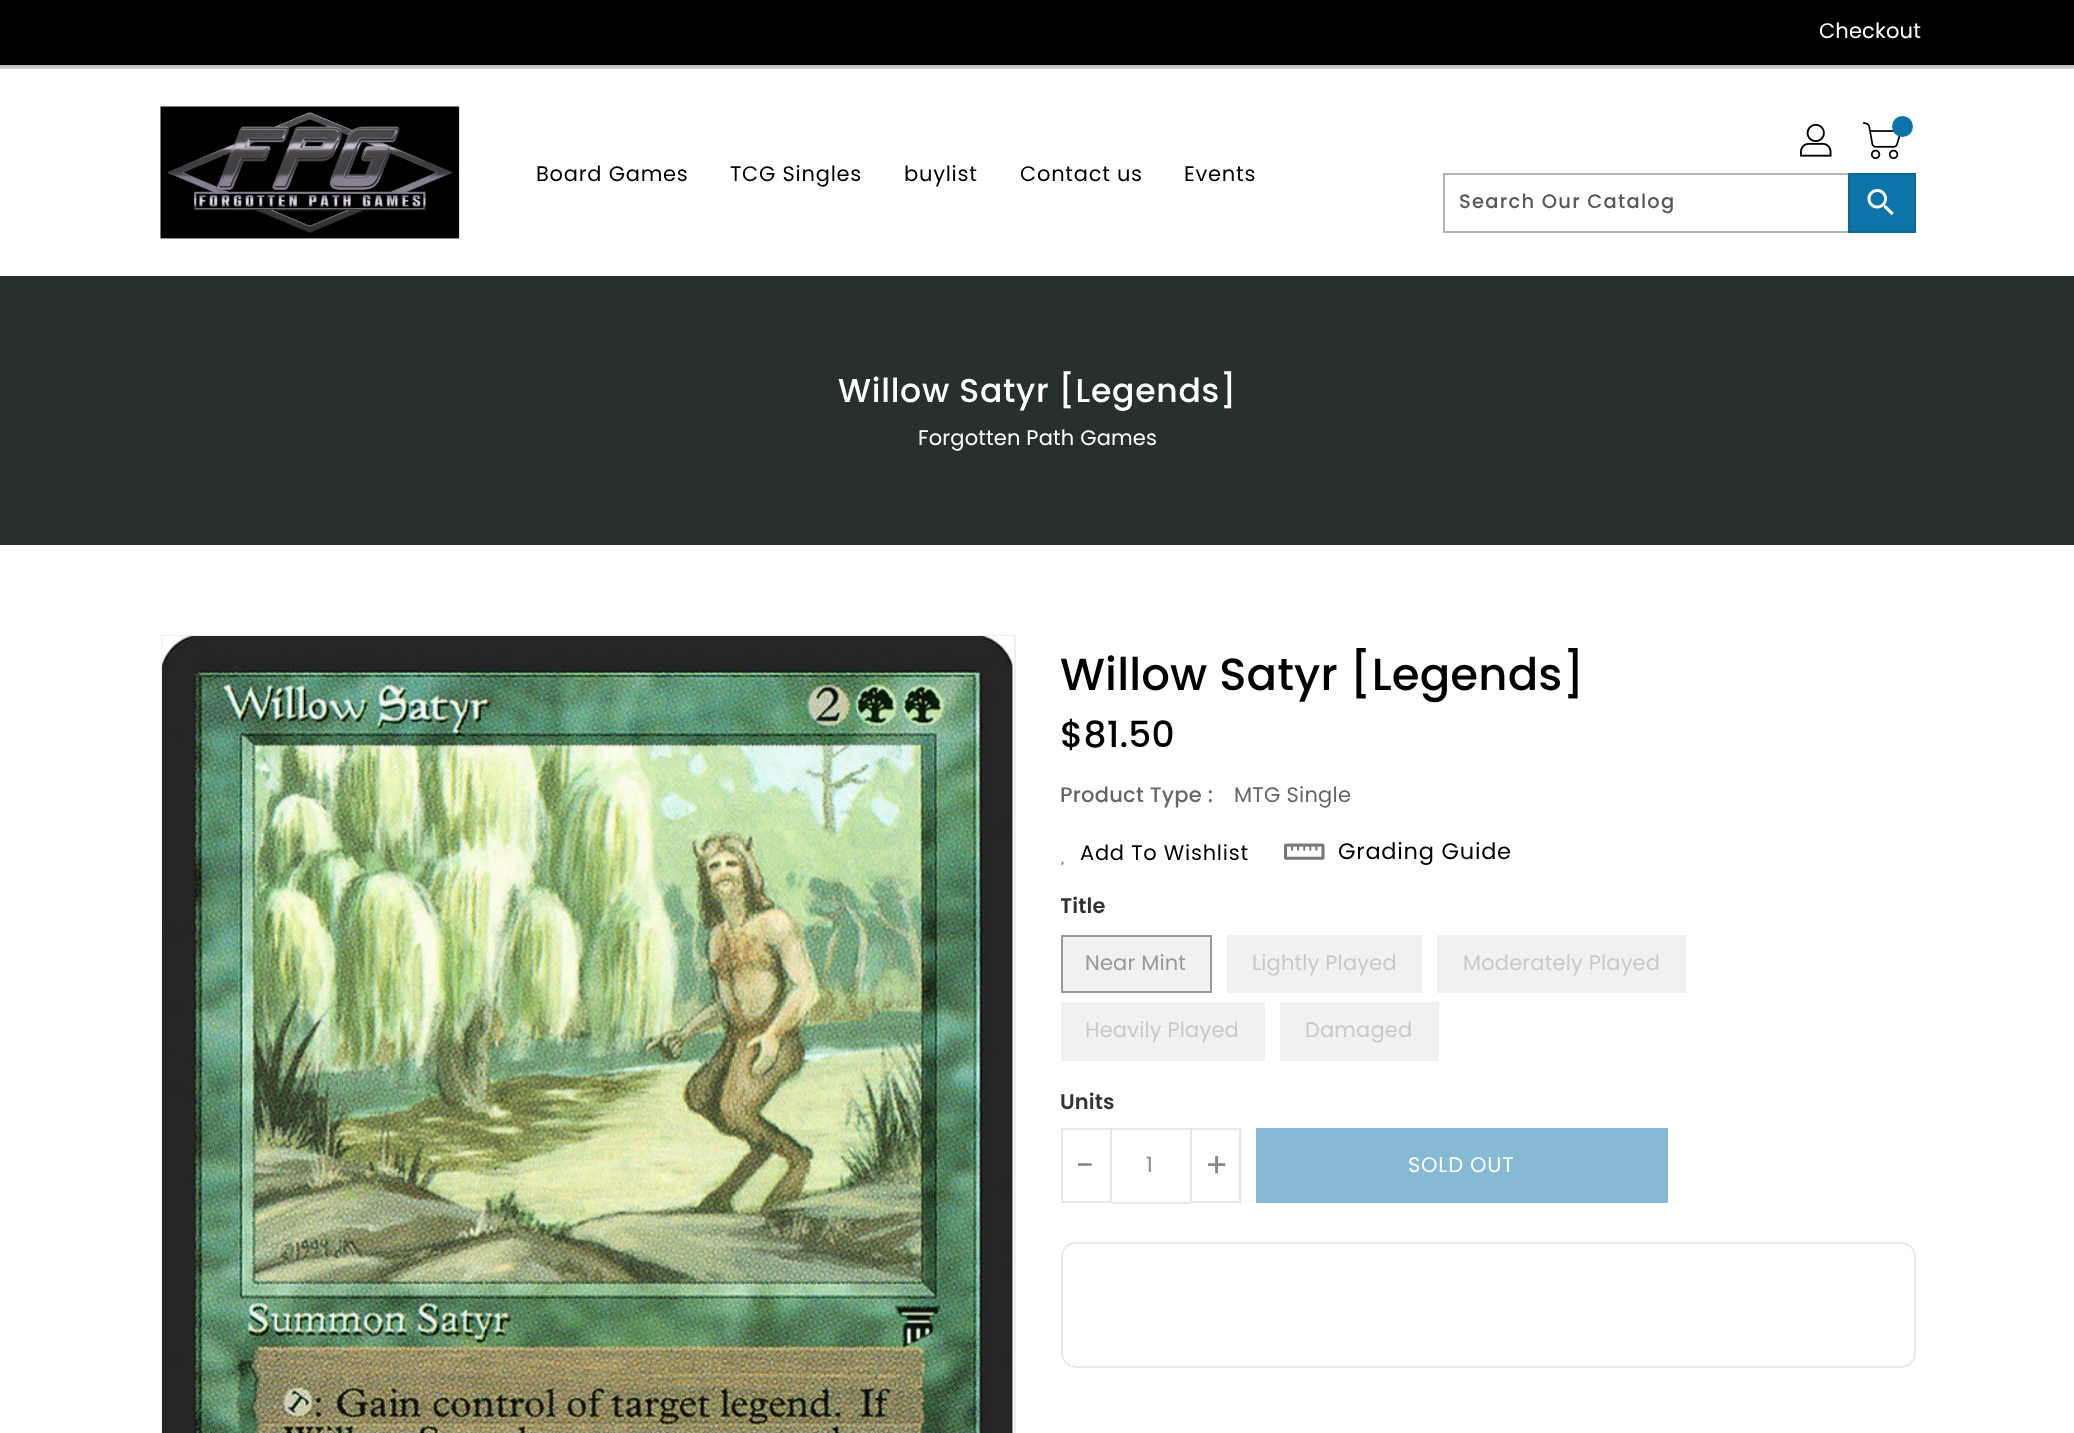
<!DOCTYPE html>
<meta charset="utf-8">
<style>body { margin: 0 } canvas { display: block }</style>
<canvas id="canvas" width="2074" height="1433"></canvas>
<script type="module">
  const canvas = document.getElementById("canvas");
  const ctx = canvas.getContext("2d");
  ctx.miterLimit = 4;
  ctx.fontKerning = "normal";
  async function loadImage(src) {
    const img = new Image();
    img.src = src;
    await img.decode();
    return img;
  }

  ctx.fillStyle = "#ffffff";
  ctx.fillRect(0, 0, 2074, 1433);
  ctx.fillStyle = "rgba(0, 0, 0, 0.3)";
  ctx.filter = "blur(3px)";
  ctx.beginPath();
  ctx.rect(-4, -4, 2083, 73);
  ctx.fill();
  ctx.filter = "none";
  ctx.fillStyle = "#000000";
  ctx.fillRect(0, 0, 2074, 65);
  ctx.letterSpacing = "0.15px";
  ctx.font = "21px Poppins";
  ctx.fillStyle = "#ffffff";
  ctx.fillText("Checkout", 1819, 38);
  ctx.fillRect(0, 69, 2074, 5);
  ctx.drawImage(await loadImage("img1.png"), 160, 106, 300, 133);
  ctx.letterSpacing = "0.75px";
  ctx.fillStyle = "#000000";
  ctx.fillText("Board Games", 536, 181);
  ctx.fillText("TCG Singles", 730, 181);
  ctx.fillText("buylist", 904, 181);
  ctx.fillText("Contact us", 1020, 181);
  ctx.fillText("Events", 1184, 181);
  ctx.drawImage(await loadImage("img2.png"), 1800, 124, 32, 33);
  ctx.drawImage(await loadImage("img3.png"), 1863, 122, 38, 38);
  ctx.fillStyle = "#0d74a9";
  ctx.beginPath();
  ctx.arc(1902.5, 126.5, 10.5, 0, Math.PI * 2);
  ctx.fill();
  ctx.strokeStyle = "#b3b3b3";
  ctx.lineWidth = 2;
  ctx.strokeRect(1444, 174, 471, 58);
  ctx.letterSpacing = "1.25px";
  ctx.font = "500 19.5px Poppins";
  ctx.fillStyle = "#595959";
  ctx.fillText("Search Our Catalog", 1459, 208);
  ctx.fillStyle = "#0d74a9";
  ctx.beginPath();
  ctx.rect(1849, 174, 66, 58);
  ctx.fill();
  ctx.strokeStyle = "#0c6898";
  ctx.stroke();
  ctx.drawImage(await loadImage("img4.png"), 1867, 189, 27, 27);
  ctx.fillStyle = "#27302f";
  ctx.fillRect(0, 276, 2074, 269);
  ctx.letterSpacing = "0.75px";
  ctx.font = "500 33px Poppins";
  ctx.fillStyle = "#ffffff";
  ctx.fillText("Willow Satyr [Legends]", 838, 402);
  ctx.letterSpacing = "0.15px";
  ctx.font = "21px Poppins";
  ctx.fillText("Forgotten Path Games", 918, 445);
  ctx.strokeStyle = "#eeeeee";
  ctx.strokeRect(162, 636, 853, 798);
  ctx.drawImage(await loadImage("img5.png"), 162, 636, 851, 797);
  ctx.font = "500 45px Poppins";
  ctx.fillStyle = "#000000";
  ctx.fillText("Willow Satyr [Legends]", 1060, 690);
  ctx.font = "500 36px Poppins";
  ctx.fillText("$81.50", 1060, 747);
  ctx.letterSpacing = "0.25px";
  ctx.font = "500 21px Poppins";
  ctx.fillStyle = "#666666";
  ctx.fillText("Product Type :", 1060, 802);
  ctx.font = "21px Poppins";
  ctx.fillText("MTG Single", 1234, 802);
  ctx.letterSpacing = "0.75px";
  ctx.fillStyle = "#000000";
  ctx.fillText("Add To Wishlist", 1080, 860);
  ctx.drawImage(await loadImage("img6.png"), 1061, 861, 3, 5);
  ctx.drawImage(await loadImage("img7.png"), 1284, 843, 41, 17);
  ctx.font = "22.5px Poppins";
  ctx.fillText("Grading Guide", 1338, 859);
  ctx.save();
  ctx.beginPath();
  ctx.rect(1061, 891, 847, 179);
  ctx.clip();
  ctx.letterSpacing = "0.15px";
  ctx.font = "600 21px Poppins";
  ctx.fillStyle = "#333333";
  ctx.fillText("Title", 1060, 913);
  ctx.restore();
  ctx.fillStyle = "#f1f1f1";
  ctx.beginPath();
  ctx.rect(1062, 936, 149, 56);
  ctx.fill();
  ctx.strokeStyle = "#999999";
  ctx.stroke();
  ctx.letterSpacing = "0.15px";
  ctx.font = "21px Poppins";
  ctx.fillStyle = "#999999";
  ctx.fillText("Near Mint", 1085, 970);
  ctx.fillStyle = "#f1f1f1";
  ctx.fillRect(1227, 935, 195, 58);
  ctx.fillStyle = "#c9c9c9";
  ctx.fillText("Lightly Played", 1252, 970);
  ctx.fillStyle = "#f1f1f1";
  ctx.fillRect(1437, 935, 249, 58);
  ctx.fillStyle = "#c9c9c9";
  ctx.fillText("Moderately Played", 1463, 970);
  ctx.fillStyle = "#f1f1f1";
  ctx.fillRect(1061, 1002, 204, 59);
  ctx.fillStyle = "#c9c9c9";
  ctx.fillText("Heavily Played", 1085, 1037);
  ctx.fillStyle = "#f1f1f1";
  ctx.fillRect(1280, 1002, 159, 59);
  ctx.fillStyle = "#c9c9c9";
  ctx.fillText("Damaged", 1305, 1037);
  ctx.font = "600 21px Poppins";
  ctx.fillStyle = "#333333";
  ctx.fillText("Units", 1060, 1109);
  ctx.strokeStyle = "#e9e9e9";
  ctx.strokeRect(1062, 1129, 49, 73);
  ctx.letterSpacing = "0.75px";
  ctx.font = "34px Poppins";
  ctx.fillStyle = "#888888";
  ctx.fillText("-", 1076, 1177);
  ctx.fillStyle = "#e9e9e9";
  ctx.fillRect(1112, 1128, 78, 2);
  ctx.fillRect(1112, 1202, 78, 2);
  ctx.letterSpacing = "0.15px";
  ctx.font = "21px Poppins";
  ctx.fillStyle = "#888888";
  ctx.fillText("1", 1146, 1172);
  ctx.strokeRect(1191, 1129, 49, 73);
  ctx.letterSpacing = "0.75px";
  ctx.font = "34px Poppins";
  ctx.fillText("+", 1205, 1177);
  ctx.fillStyle = "#86bad4";
  ctx.fillRect(1256, 1128, 412, 75);
  ctx.font = "21px Poppins";
  ctx.fillStyle = "#ffffff";
  ctx.fillText("SOLD OUT", 1408, 1172);
  ctx.beginPath();
  ctx.roundRect(1062, 1243, 853, 124, 14);
  ctx.stroke();
</script>
